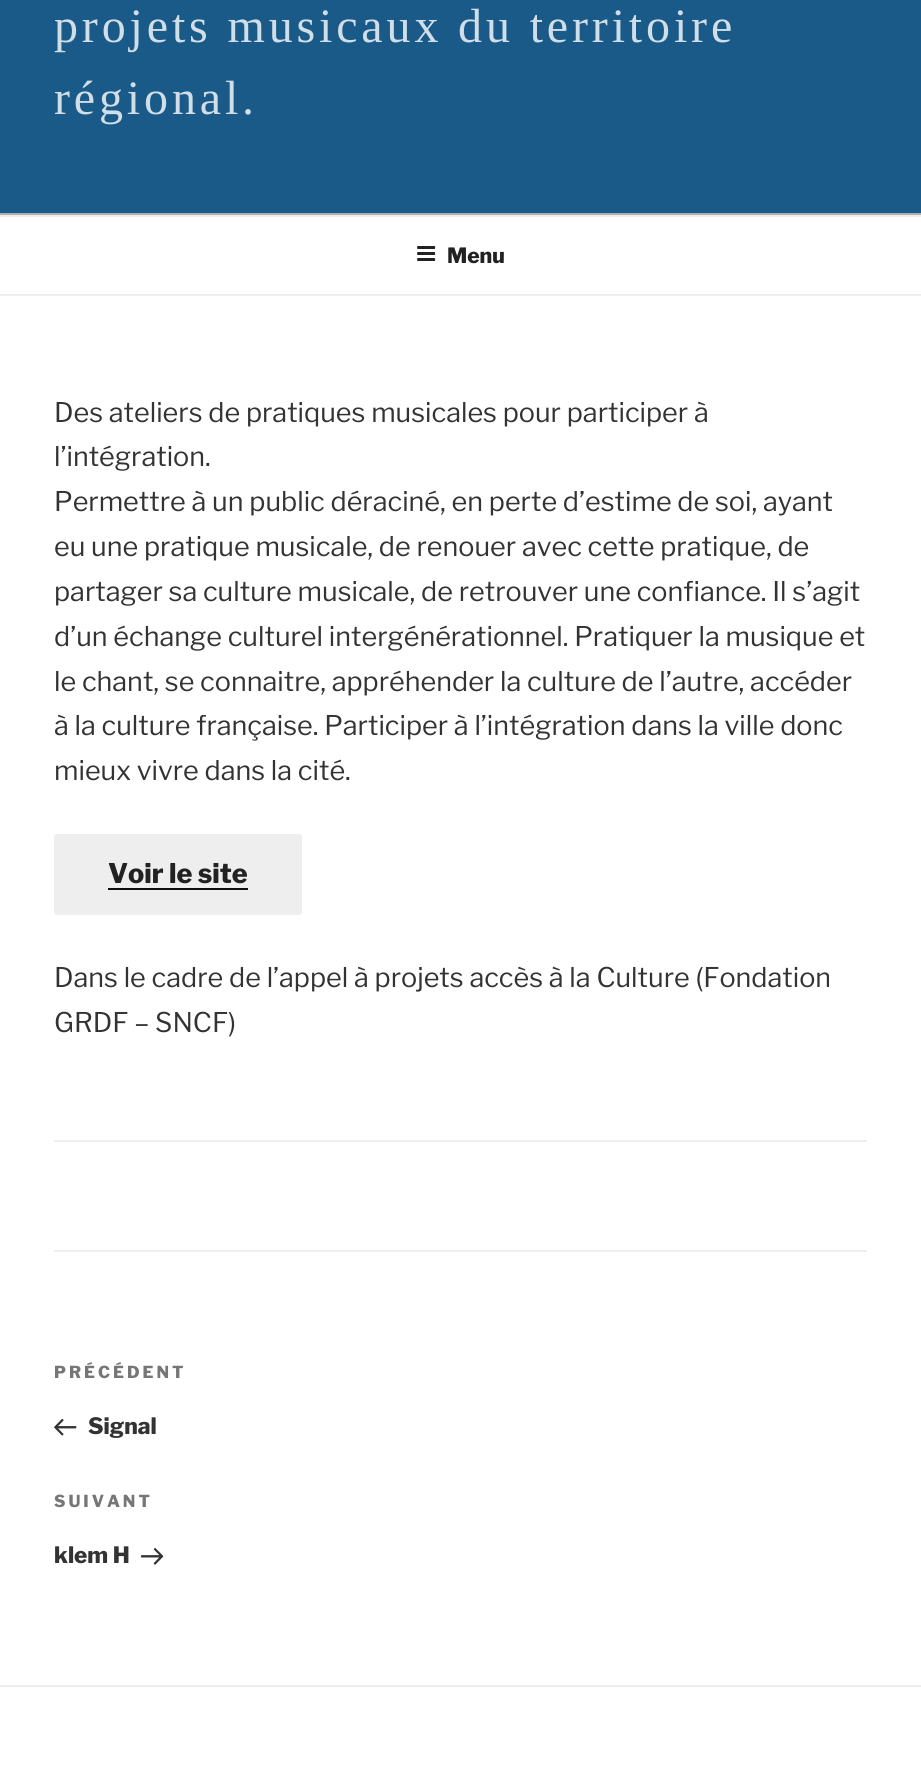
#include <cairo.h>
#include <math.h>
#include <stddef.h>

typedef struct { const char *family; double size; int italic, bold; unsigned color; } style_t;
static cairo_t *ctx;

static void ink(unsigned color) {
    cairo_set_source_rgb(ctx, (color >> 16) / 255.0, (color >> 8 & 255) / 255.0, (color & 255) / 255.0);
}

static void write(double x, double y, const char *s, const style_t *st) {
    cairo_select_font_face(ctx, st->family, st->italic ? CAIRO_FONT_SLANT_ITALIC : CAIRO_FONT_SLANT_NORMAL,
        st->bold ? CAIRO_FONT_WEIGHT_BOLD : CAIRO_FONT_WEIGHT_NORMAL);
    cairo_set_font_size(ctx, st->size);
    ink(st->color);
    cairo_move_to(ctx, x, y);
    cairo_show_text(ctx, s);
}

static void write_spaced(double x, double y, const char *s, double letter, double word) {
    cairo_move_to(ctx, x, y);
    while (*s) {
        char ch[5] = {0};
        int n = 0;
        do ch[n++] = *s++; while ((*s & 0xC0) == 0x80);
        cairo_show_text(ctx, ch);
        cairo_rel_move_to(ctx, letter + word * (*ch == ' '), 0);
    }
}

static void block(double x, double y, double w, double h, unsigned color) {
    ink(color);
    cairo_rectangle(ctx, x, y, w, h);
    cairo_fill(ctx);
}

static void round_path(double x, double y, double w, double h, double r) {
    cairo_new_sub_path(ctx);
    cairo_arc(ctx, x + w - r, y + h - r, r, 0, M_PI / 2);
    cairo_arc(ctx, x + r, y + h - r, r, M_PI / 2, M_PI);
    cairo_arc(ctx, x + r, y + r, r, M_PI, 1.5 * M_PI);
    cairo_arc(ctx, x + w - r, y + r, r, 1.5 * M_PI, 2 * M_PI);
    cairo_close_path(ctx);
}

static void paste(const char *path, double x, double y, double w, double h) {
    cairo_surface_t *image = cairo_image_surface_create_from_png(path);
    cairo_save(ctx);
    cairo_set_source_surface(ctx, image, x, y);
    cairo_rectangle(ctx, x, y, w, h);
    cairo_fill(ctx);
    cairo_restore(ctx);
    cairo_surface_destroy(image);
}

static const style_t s1 = {"Libre Franklin ExtraBold", 21, 0, 0, 0x222222};
static const style_t s2 = {"Libre Franklin", 27, 0, 0, 0x333333};
static const style_t s3 = {"Libre Franklin ExtraBold", 27, 0, 0, 0x222222};
static const style_t s4 = {"Libre Franklin ExtraBold", 22.5, 0, 0, 0x333333};

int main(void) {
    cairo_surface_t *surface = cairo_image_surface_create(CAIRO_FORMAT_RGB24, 921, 1768);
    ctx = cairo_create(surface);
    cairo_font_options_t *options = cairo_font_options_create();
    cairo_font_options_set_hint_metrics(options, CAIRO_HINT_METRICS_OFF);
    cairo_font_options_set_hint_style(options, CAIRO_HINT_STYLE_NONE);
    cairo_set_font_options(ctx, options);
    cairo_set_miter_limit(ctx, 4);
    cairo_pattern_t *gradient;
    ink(0xffffff);
    cairo_paint(ctx);
    block(0, 213, 921, 2, 0xfafafa);
    block(0, 0, 921, 213, 0x2481c4);
    gradient = cairo_pattern_create_linear(460, -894, 461, 215);
    cairo_pattern_add_color_stop_rgba(gradient, 0, 0, 0, 0, 0);
    cairo_pattern_add_color_stop_rgba(gradient, 0.75, 0, 0, 0, 0.3);
    cairo_pattern_add_color_stop_rgba(gradient, 1, 0, 0, 0, 0.3);
    cairo_set_source(ctx, gradient);
    cairo_pattern_destroy(gradient);
    cairo_rectangle(ctx, 0, 0, 921, 215);
    cairo_fill(ctx);
    cairo_select_font_face(ctx, "Liberation Serif", CAIRO_FONT_SLANT_NORMAL, CAIRO_FONT_WEIGHT_NORMAL);
    cairo_set_font_size(ctx, 48);
    ink(0xd1dee7);
    write_spaced(54, 42, "projets musicaux du territoire", 3.85, 0);
    write_spaced(54, 114, "régional.", 3.85, 0);
    block(0, 215, 921, 2, 0xeeeeee);
    block(0, 294, 921, 2, 0xeeeeee);
    paste("pic1.png", 417, 246, 19, 15);
    write(447, 263, "Menu", &s1);
    write(54, 422, "Des ateliers de pratiques musicales pour participer à", &s2);
    write(54, 466, "l’intégration.", &s2);
    write(54, 511, "Permettre à un public déraciné, en perte d’estime de soi, ayant", &s2);
    write(54, 556, "eu une pratique musicale, de renouer avec cette pratique, de", &s2);
    write(54, 601, "partager sa culture musicale, de retrouver une confiance. Il s’agit", &s2);
    write(54, 646, "d’un échange culturel intergénérationnel. Pratiquer la musique et", &s2);
    write(54, 691, "le chant, se connaitre, appréhender la culture de l’autre, accéder", &s2);
    write(54, 735, "à la culture française. Participer à l’intégration dans la ville donc", &s2);
    write(54, 780, "mieux vivre dans la cité.", &s2);
    ink(0xeeeeee);
    round_path(54, 834, 248, 81, 3);
    cairo_fill(ctx);
    write(108, 883, "Voir le site", &s3);
    block(108, 888, 140, 2, 0x0f0f0f);
    write(54, 987, "Dans le cadre de l’appel à projets accès à la Culture (Fondation", &s2);
    write(54, 1032, "GRDF – SNCF)", &s2);
    block(54, 1140, 813, 2, 0xeeeeee);
    block(54, 1250, 813, 2, 0xeeeeee);
    cairo_select_font_face(ctx, "Libre Franklin ExtraBold", CAIRO_FONT_SLANT_NORMAL, CAIRO_FONT_WEIGHT_NORMAL);
    cairo_set_font_size(ctx, 16.5);
    ink(0x767676);
    write_spaced(54, 1378, "PRÉCÉDENT", 3, 0);
    paste("pic2.png", 54, 1418, 23, 18);
    write(88, 1434, "Signal", &s4);
    cairo_set_font_size(ctx, 16.5);
    ink(0x767676);
    write_spaced(54, 1507, "SUIVANT", 3, 0);
    write(54, 1563, "klem H", &s4);
    paste("pic3.png", 141, 1547, 23, 18);
    block(0, 1685, 921, 2, 0xeeeeee);
    cairo_surface_write_to_png(surface, "screenshot.png");
    cairo_font_options_destroy(options);
    cairo_destroy(ctx);
    cairo_surface_destroy(surface);
    return 0;
}
